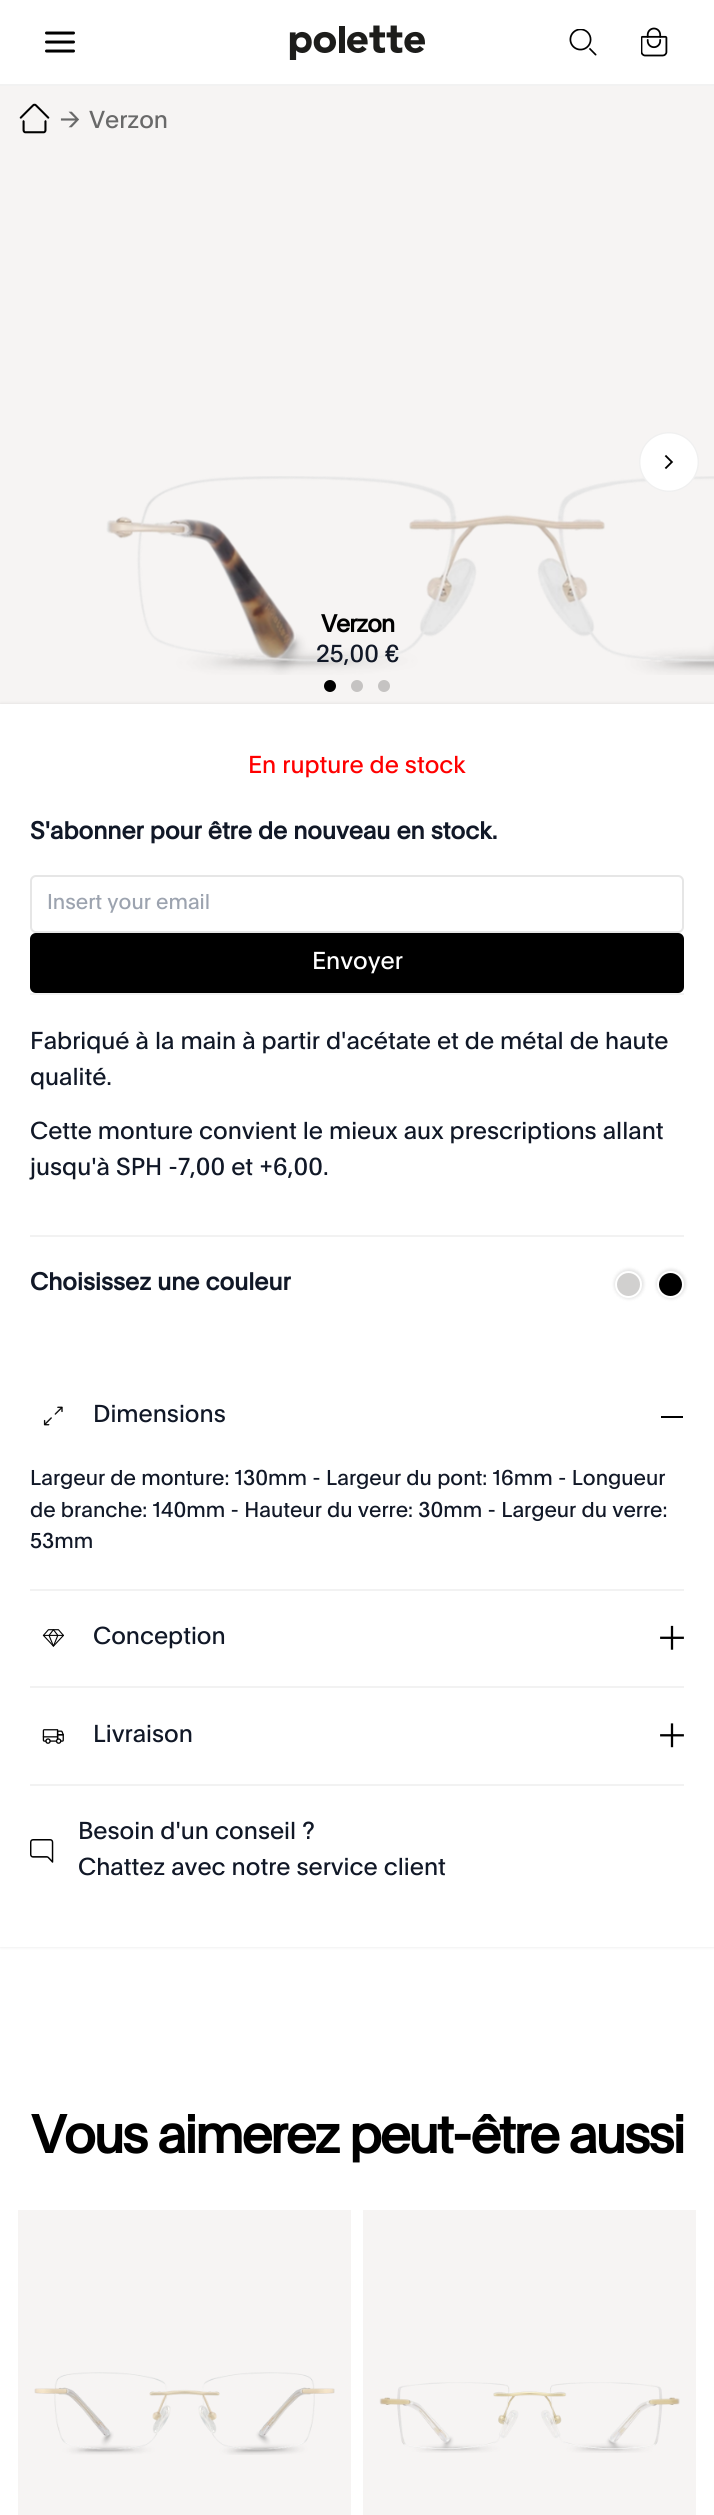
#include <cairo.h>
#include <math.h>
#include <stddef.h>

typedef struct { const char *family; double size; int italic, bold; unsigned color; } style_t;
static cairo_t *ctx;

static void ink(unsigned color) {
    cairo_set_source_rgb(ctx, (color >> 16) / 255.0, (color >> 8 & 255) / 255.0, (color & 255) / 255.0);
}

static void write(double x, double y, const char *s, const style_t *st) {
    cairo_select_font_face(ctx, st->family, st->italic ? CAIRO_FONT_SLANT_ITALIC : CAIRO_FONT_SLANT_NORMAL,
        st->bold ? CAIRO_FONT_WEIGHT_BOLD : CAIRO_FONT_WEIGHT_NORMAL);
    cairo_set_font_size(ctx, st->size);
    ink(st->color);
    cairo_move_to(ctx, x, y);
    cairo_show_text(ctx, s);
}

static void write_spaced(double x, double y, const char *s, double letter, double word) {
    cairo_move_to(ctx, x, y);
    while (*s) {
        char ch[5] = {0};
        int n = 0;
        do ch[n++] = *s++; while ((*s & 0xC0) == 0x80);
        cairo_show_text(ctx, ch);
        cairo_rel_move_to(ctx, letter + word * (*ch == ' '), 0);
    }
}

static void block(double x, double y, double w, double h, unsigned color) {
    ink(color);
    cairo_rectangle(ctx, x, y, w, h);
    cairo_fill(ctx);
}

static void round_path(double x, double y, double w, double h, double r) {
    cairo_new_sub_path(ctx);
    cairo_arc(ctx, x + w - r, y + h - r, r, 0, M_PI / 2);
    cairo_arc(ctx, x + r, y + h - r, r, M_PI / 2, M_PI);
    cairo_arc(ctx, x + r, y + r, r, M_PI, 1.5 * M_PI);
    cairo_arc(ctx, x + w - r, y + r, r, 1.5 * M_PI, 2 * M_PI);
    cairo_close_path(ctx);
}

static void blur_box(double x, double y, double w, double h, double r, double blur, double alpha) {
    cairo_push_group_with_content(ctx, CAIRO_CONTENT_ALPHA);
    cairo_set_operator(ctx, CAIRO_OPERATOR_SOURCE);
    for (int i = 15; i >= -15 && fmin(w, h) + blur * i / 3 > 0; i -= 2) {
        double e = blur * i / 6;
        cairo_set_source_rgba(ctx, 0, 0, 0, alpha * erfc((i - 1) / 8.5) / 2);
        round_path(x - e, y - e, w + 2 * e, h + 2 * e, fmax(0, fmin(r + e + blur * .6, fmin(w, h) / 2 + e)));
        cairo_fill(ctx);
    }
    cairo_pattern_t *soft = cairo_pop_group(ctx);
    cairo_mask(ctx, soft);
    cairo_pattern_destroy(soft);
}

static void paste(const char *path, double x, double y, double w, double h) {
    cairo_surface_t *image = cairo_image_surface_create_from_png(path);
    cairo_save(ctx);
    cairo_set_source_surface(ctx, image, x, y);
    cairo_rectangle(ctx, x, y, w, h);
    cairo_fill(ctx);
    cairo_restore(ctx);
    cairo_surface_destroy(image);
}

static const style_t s1 = {"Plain", 24, 0, 0, 0x696969};
static const style_t s2 = {"Plain", 24, 0, 0, 0x111827};
static const style_t s3 = {"Plain", 24, 0, 0, 0xff0000};
static const style_t s4 = {"Plain", 24, 0, 1, 0x111827};
static const style_t s5 = {"Plain", 21, 0, 0, 0x9ca3af};
static const style_t s6 = {"Plain", 24, 0, 0, 0xffffff};
static const style_t s7 = {"Plain", 21, 0, 0, 0x111827};

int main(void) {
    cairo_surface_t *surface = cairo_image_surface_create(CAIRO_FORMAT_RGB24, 714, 2515);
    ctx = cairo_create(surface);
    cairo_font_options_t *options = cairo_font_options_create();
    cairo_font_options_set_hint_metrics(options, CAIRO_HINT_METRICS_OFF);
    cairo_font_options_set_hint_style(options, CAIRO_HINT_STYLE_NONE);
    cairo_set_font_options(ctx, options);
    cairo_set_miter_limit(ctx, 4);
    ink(0xffffff);
    cairo_paint(ctx);
    block(0, 84, 714, 2, 0xf2f2f2);
    cairo_new_path(ctx);
    cairo_move_to(ctx, 46.5, 42);
    cairo_line_to(ctx, 73.5, 42);
    cairo_move_to(ctx, 46.5, 33);
    cairo_line_to(ctx, 73.5, 33);
    cairo_move_to(ctx, 46.5, 51);
    cairo_line_to(ctx, 73.5, 51);
    ink(0x000000);
    cairo_set_line_width(ctx, 3);
    cairo_set_line_cap(ctx, CAIRO_LINE_CAP_ROUND);
    cairo_set_line_join(ctx, CAIRO_LINE_JOIN_ROUND);
    cairo_stroke(ctx);
    paste("pic1.png", 289, 25, 136, 35);
    paste("pic2.png", 569, 29, 28, 27);
    paste("pic3.png", 641, 27, 27, 30);
    block(0, 86, 714, 618, 0xf6f4f3);
    paste("pic4.png", 19, 103, 31, 31);
    write(60, 128, "→", &s1);
    write(89, 128, "Verzon", &s1);
    paste("pic6.png", 106, 476, 608, 199);
    paste("pic5.png", 639, 432, 60, 60);
    ink(0x000000);
    cairo_arc(ctx, 330, 686, 6, 0, 2 * M_PI);
    cairo_fill(ctx);
    ink(0xc5c3c2);
    cairo_arc(ctx, 357, 686, 6, 0, 2 * M_PI);
    cairo_fill(ctx);
    cairo_arc(ctx, 384, 686, 6, 0, 2 * M_PI);
    cairo_fill(ctx);
    ink(0x000000);
    blur_box(0, 704, 714, 1243, 0, 1.5, 0.1);
    block(0, 704, 714, 1243, 0xffffff);
    cairo_select_font_face(ctx, "Plain", CAIRO_FONT_SLANT_NORMAL, CAIRO_FONT_WEIGHT_BOLD);
    ink(0x000000);
    write_spaced(321, 632, "Verzon", -1, 0);
    write(316, 662, "25,00 €", &s2);
    write(248, 773, "En rupture de stock", &s3);
    write(30, 839, "S'abonner pour être de nouveau en stock.", &s4);
    round_path(31, 876, 652, 56, 5);
    ink(0xe6e6e6);
    cairo_set_line_width(ctx, 2);
    cairo_set_line_cap(ctx, CAIRO_LINE_CAP_BUTT);
    cairo_set_line_join(ctx, CAIRO_LINE_JOIN_MITER);
    cairo_stroke(ctx);
    write(47, 909, "Insert your email", &s5);
    ink(0x000000);
    round_path(30, 933, 654, 60, 6);
    cairo_fill(ctx);
    write(312, 969, "Envoyer", &s6);
    block(30, 993, 654, 2, 0xf2f2f2);
    block(30, 1235, 654, 2, 0xf2f2f2);
    write(30, 1049, "Fabriqué à la main à partir d'acétate et de métal de haute", &s2);
    write(30, 1085, "qualité.", &s2);
    write(30, 1139, "Cette monture convient le mieux aux prescriptions allant", &s2);
    write(30, 1175, "jusqu'à SPH -7,00 et +6,00.", &s2);
    write(30, 1290, "Choisissez une couleur", &s4);
    ink(0x000000);
    blur_box(614, 1269, 30, 30, 15, 1.5, 0.1);
    ink(0xd1d0cf);
    cairo_arc(ctx, 628.5, 1284.5, 12.5, 0, 2 * M_PI);
    cairo_fill_preserve(ctx);
    ink(0xffffff);
    cairo_stroke(ctx);
    ink(0x000000);
    blur_box(656, 1269, 30, 30, 15, 1.5, 0.1);
    ink(0x000000);
    cairo_arc(ctx, 670.5, 1284.5, 12.5, 0, 2 * M_PI);
    cairo_fill_preserve(ctx);
    ink(0xffffff);
    cairo_stroke(ctx);
    block(30, 1589, 654, 2, 0xf2f2f2);
    block(661, 1416, 22, 2, 0x000000);
    paste("pic7.png", 43, 1406, 20, 20);
    write(93, 1422, "Dimensions", &s2);
    write(30, 1485, "Largeur de monture: 130mm - Largeur du pont: 16mm - Longueur", &s7);
    write(30, 1517, "de branche: 140mm - Hauteur du verre: 30mm - Largeur du verre:", &s7);
    write(30, 1548, "53mm", &s7);
    block(30, 1686, 654, 2, 0xf2f2f2);
    paste("pic8.png", 660, 1625, 24, 25);
    paste("pic9.png", 42, 1629, 22, 18);
    write(93, 1644, "Conception", &s2);
    block(30, 1784, 654, 2, 0xf2f2f2);
    paste("pic10.png", 660, 1723, 24, 25);
    paste("pic11.png", 42, 1729, 22, 15);
    write(93, 1742, "Livraison", &s2);
    paste("pic12.png", 30, 1839, 24, 24);
    write(78, 1839, "Besoin d'un conseil ?", &s2);
    write(78, 1875, "Chattez avec notre service client", &s2);
    cairo_select_font_face(ctx, "Plain", CAIRO_FONT_SLANT_NORMAL, CAIRO_FONT_WEIGHT_BOLD);
    cairo_set_font_size(ctx, 52.5);
    ink(0x000000);
    write_spaced(31, 2153, "Vous aimerez peut-être aussi", -2.25, 0);
    block(18, 2210, 333, 305, 0xf6f4f3);
    paste("pic13.png", 34, 2372, 301, 83);
    block(363, 2210, 333, 305, 0xf6f4f3);
    paste("pic14.png", 379, 2382, 301, 71);
    cairo_surface_write_to_png(surface, "screenshot.png");
    cairo_font_options_destroy(options);
    cairo_destroy(ctx);
    cairo_surface_destroy(surface);
    return 0;
}
